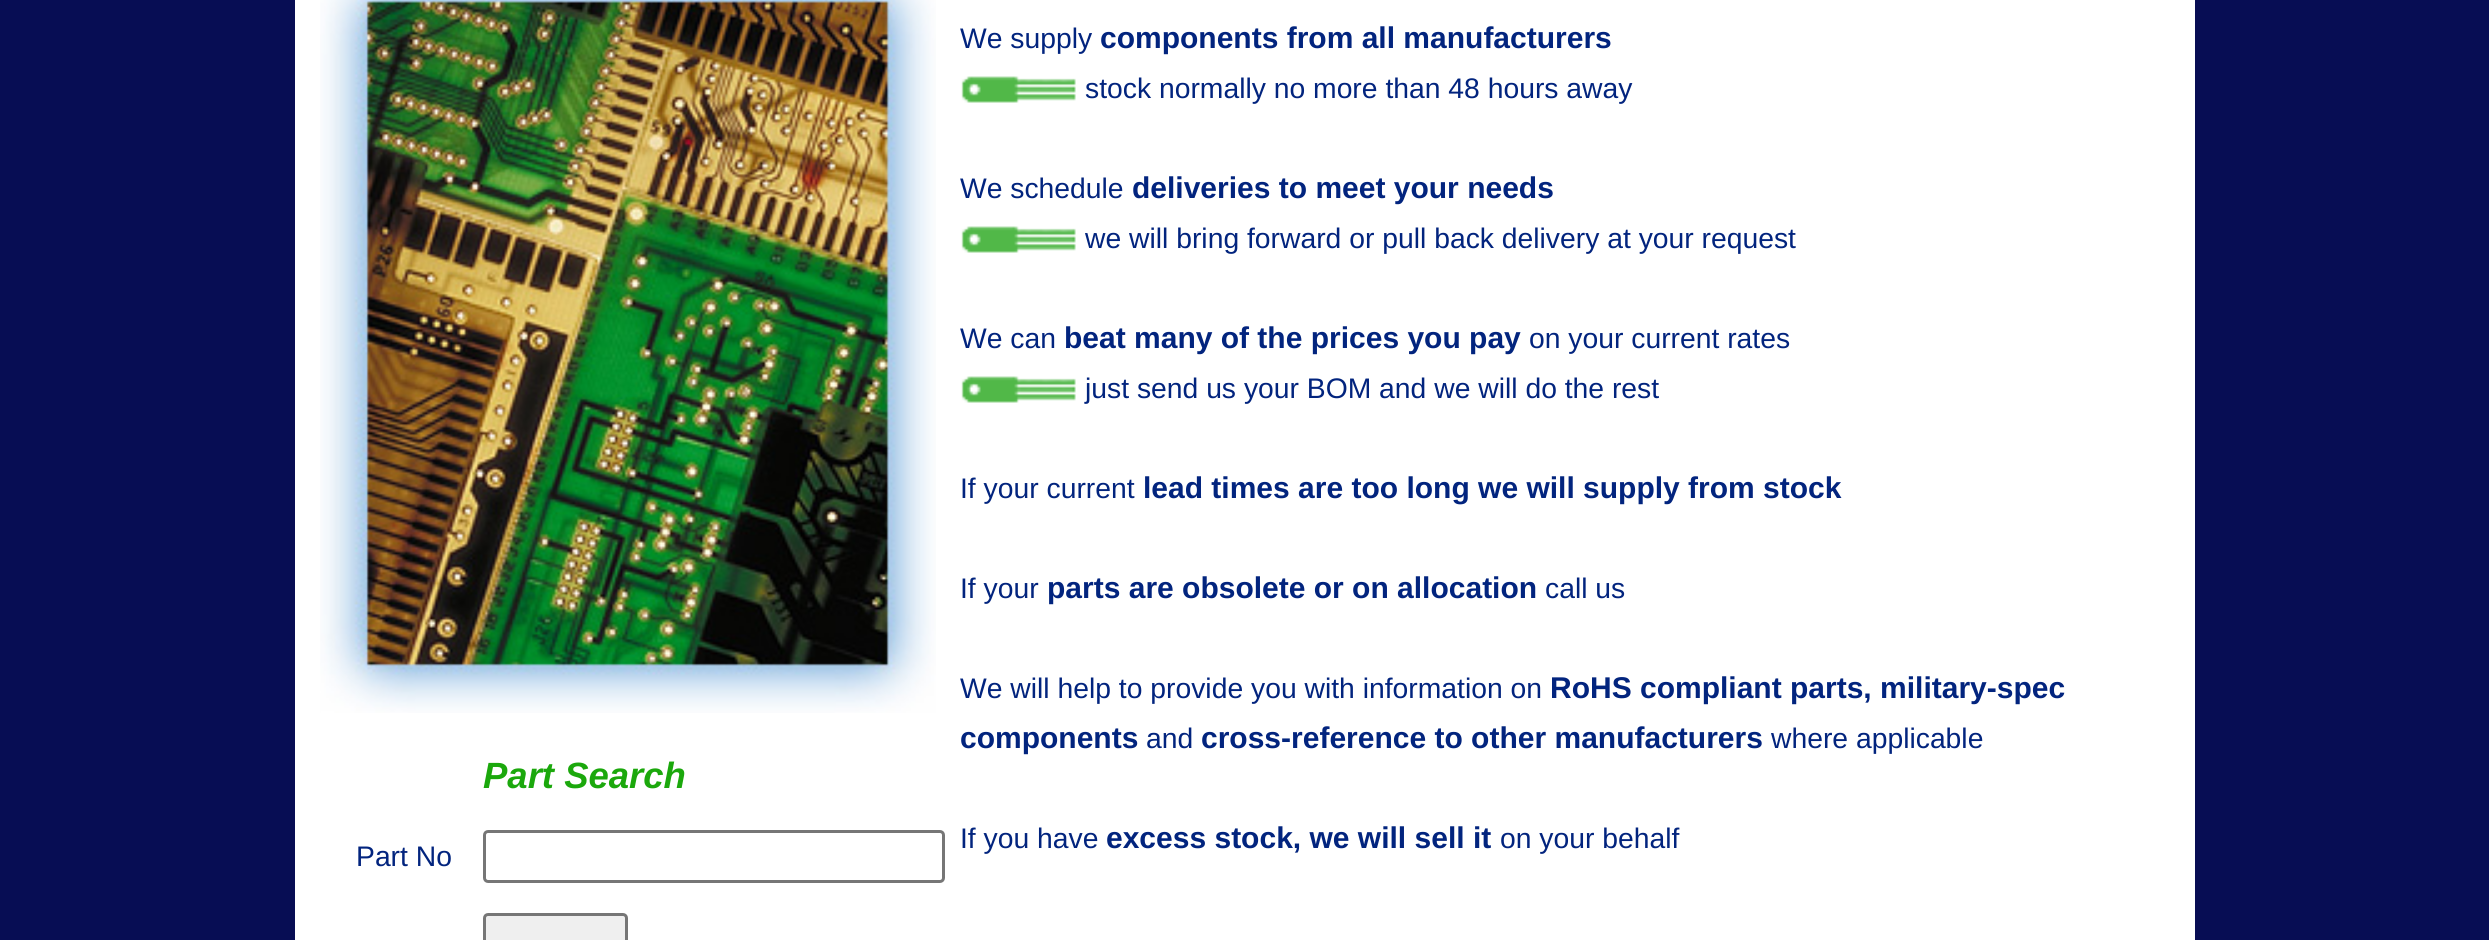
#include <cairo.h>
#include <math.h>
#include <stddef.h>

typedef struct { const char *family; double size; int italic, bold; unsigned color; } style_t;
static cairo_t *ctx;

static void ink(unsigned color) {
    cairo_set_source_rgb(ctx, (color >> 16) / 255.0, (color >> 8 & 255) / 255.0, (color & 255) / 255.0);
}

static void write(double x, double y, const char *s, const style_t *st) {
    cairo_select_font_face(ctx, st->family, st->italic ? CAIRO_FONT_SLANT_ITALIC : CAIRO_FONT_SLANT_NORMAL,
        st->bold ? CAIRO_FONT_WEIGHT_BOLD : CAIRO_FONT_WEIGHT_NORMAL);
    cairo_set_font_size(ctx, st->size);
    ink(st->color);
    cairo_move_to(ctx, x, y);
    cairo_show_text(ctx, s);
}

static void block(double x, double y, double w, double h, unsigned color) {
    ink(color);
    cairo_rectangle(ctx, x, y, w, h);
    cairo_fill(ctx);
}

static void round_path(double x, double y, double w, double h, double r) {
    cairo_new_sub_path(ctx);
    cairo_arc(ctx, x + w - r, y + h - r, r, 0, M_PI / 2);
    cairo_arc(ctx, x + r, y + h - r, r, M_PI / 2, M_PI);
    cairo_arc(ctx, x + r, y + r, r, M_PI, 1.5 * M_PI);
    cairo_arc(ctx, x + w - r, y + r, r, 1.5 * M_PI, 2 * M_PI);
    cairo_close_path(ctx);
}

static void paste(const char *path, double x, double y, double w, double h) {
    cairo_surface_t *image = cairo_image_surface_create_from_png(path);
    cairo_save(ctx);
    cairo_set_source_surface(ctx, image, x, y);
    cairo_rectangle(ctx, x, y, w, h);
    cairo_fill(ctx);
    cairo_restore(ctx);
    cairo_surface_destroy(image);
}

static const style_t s1 = {"Liberation Sans", 36.5, 1, 1, 0x1ba80c};
static const style_t s2 = {"Liberation Sans", 28.3, 0, 0, 0x02247e};
static const style_t s3 = {"Liberation Sans", 30, 0, 1, 0x02247e};

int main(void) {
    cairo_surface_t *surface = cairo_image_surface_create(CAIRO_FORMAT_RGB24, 2489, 940);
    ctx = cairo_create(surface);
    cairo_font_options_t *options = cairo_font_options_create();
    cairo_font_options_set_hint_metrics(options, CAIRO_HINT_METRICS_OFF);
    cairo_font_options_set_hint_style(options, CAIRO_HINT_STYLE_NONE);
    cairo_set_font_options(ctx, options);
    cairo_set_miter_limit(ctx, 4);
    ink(0x070d54);
    cairo_paint(ctx);
    block(295, 0, 1900, 940, 0xffffff);
    paste("pic1.png", 320, 0, 616, 713);
    write(483, 788, "Part Search", &s1);
    write(356, 866, "Part No", &s2);
    round_path(484.5, 831.5, 459, 50, 3.5);
    ink(0x767676);
    cairo_set_line_width(ctx, 3);
    cairo_stroke(ctx);
    ink(0xefefef);
    round_path(484.5, 914.5, 142, 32, 3.5);
    cairo_fill_preserve(ctx);
    ink(0x767676);
    cairo_stroke(ctx);
    write(960, 48, "We supply", &s2);
    write(1100, 48, "components from all manufacturers", &s3);
    paste("pic2.png", 961, 76, 115, 27);
    write(1085, 98, "stock normally no more than 48 hours away", &s2);
    write(960, 198, "We schedule", &s2);
    write(1132, 198, "deliveries to meet your needs", &s3);
    paste("pic2.png", 961, 226, 115, 27);
    write(1085, 248, "we will bring forward or pull back delivery at your request", &s2);
    write(960, 348, "We can", &s2);
    write(1064, 348, "beat many of the prices you pay", &s3);
    write(1529, 348, "on your current rates", &s2);
    paste("pic2.png", 961, 376, 115, 27);
    write(1085, 398, "just send us your BOM and we will do the rest", &s2);
    write(960, 498, "If your current", &s2);
    write(1143, 498, "lead times are too long we will supply from stock", &s3);
    write(960, 598, "If your", &s2);
    write(1047, 598, "parts are obsolete or on allocation", &s3);
    write(1545, 598, "call us", &s2);
    write(960, 698, "We will help to provide you with information on", &s2);
    write(1550, 698, "RoHS compliant parts, military-spec", &s3);
    write(960, 748, "components", &s3);
    write(1146, 748, "and", &s2);
    write(1201, 748, "cross-reference to other manufacturers", &s3);
    write(1771, 748, "where applicable", &s2);
    write(960, 848, "If you have", &s2);
    write(1106, 848, "excess stock, we will sell it", &s3);
    write(1500, 848, "on your behalf", &s2);
    cairo_surface_write_to_png(surface, "screenshot.png");
    cairo_font_options_destroy(options);
    cairo_destroy(ctx);
    cairo_surface_destroy(surface);
    return 0;
}
